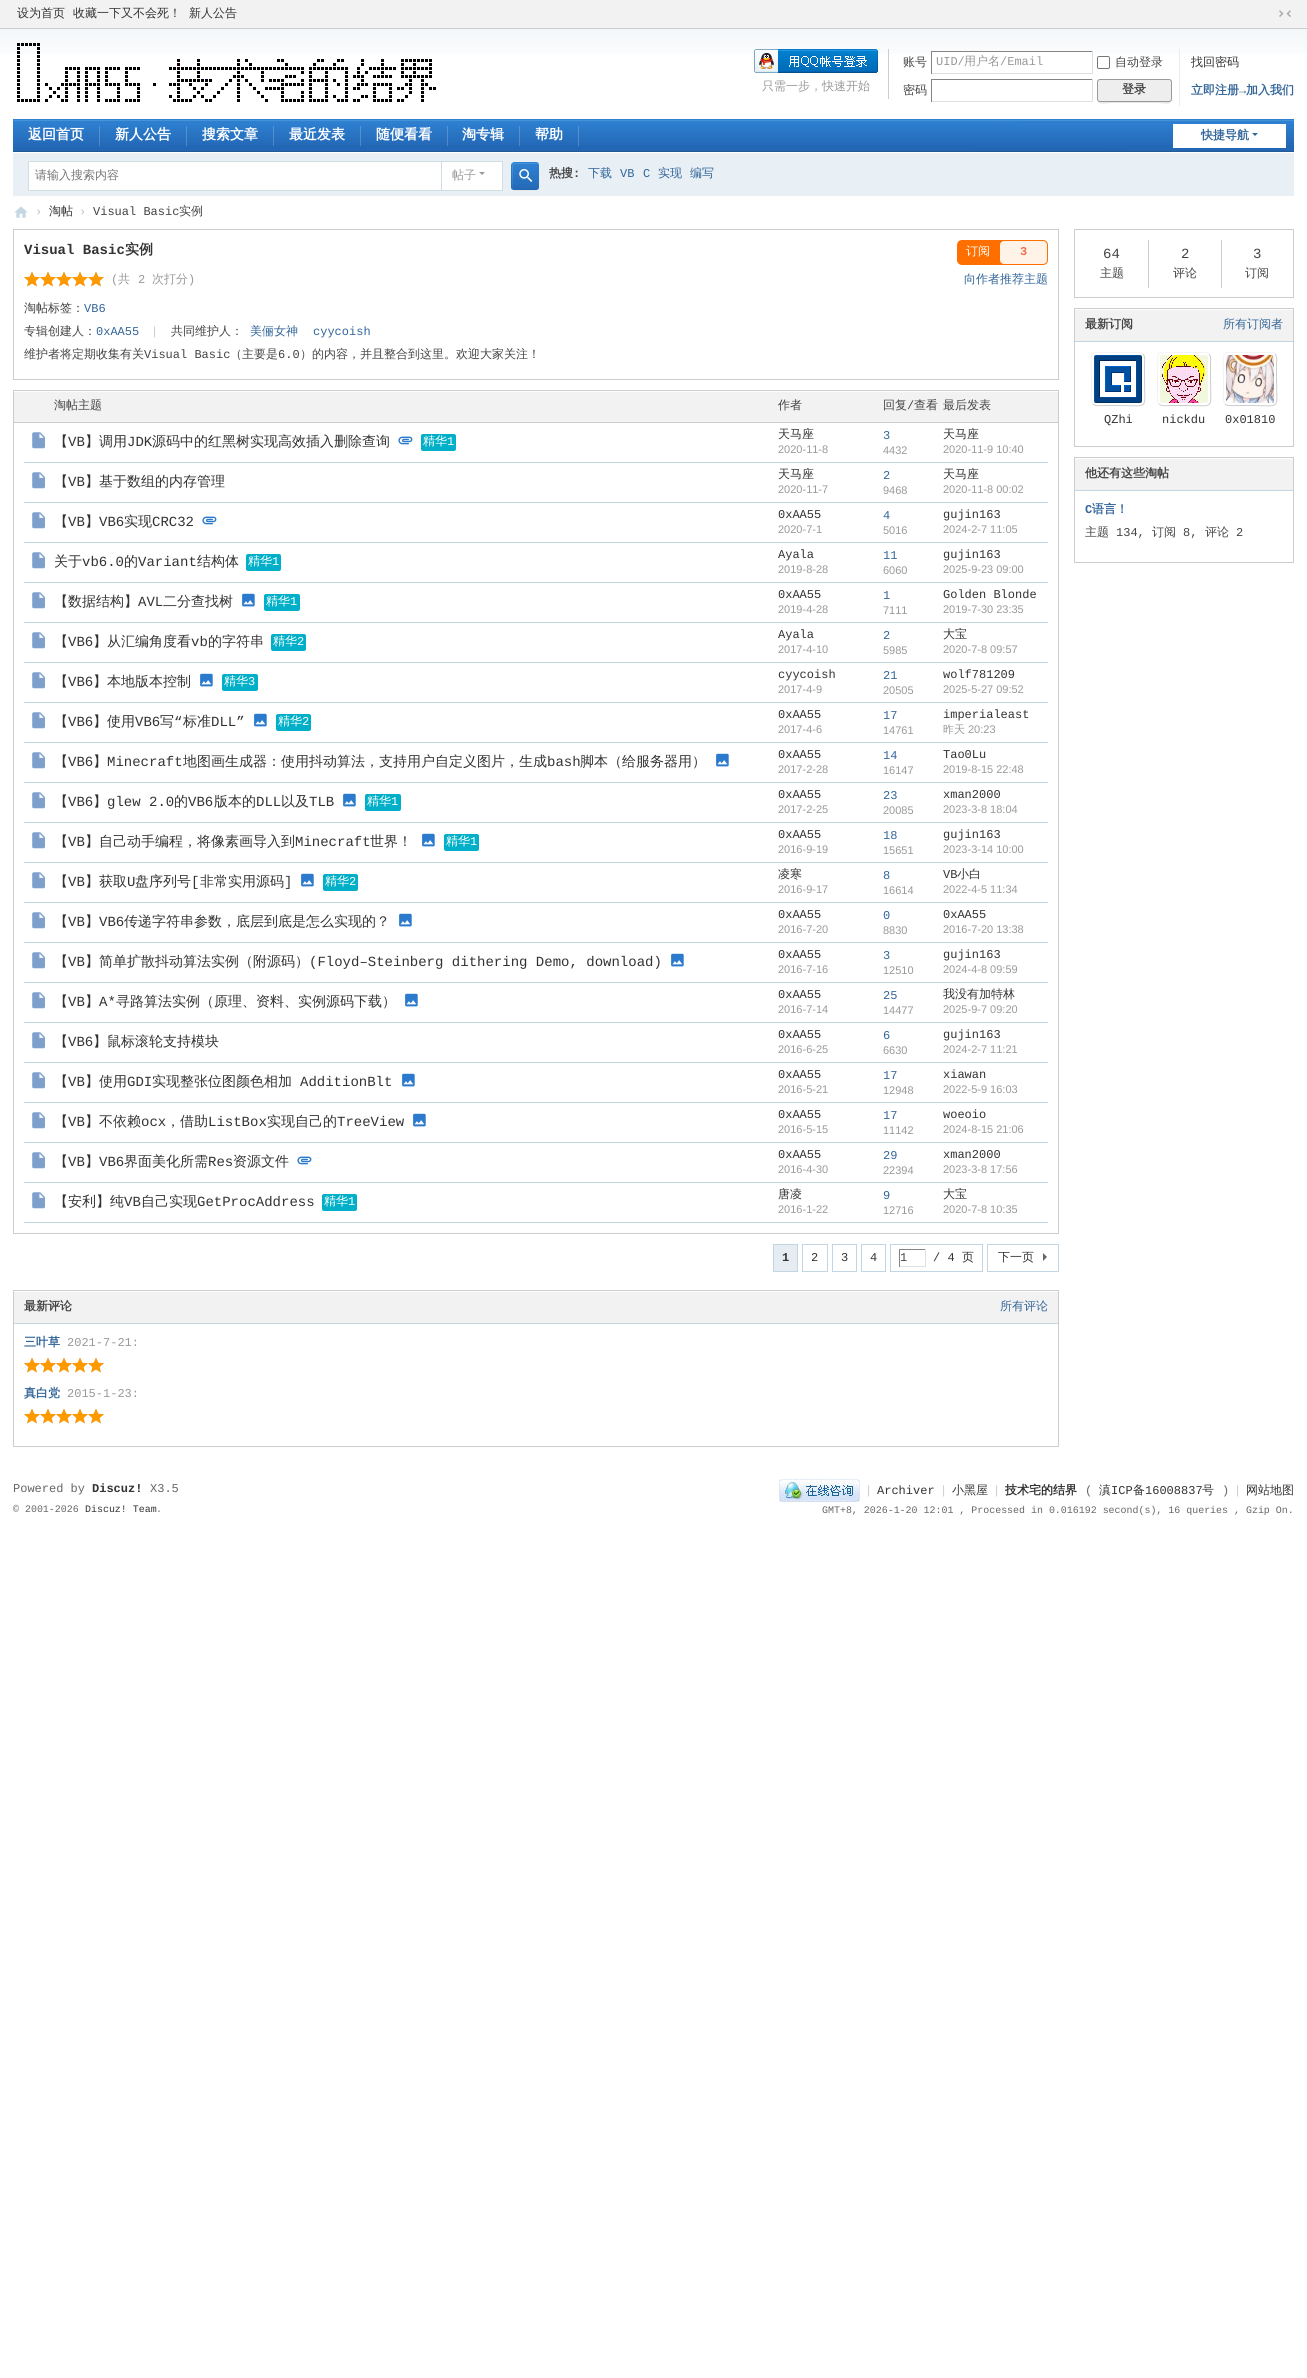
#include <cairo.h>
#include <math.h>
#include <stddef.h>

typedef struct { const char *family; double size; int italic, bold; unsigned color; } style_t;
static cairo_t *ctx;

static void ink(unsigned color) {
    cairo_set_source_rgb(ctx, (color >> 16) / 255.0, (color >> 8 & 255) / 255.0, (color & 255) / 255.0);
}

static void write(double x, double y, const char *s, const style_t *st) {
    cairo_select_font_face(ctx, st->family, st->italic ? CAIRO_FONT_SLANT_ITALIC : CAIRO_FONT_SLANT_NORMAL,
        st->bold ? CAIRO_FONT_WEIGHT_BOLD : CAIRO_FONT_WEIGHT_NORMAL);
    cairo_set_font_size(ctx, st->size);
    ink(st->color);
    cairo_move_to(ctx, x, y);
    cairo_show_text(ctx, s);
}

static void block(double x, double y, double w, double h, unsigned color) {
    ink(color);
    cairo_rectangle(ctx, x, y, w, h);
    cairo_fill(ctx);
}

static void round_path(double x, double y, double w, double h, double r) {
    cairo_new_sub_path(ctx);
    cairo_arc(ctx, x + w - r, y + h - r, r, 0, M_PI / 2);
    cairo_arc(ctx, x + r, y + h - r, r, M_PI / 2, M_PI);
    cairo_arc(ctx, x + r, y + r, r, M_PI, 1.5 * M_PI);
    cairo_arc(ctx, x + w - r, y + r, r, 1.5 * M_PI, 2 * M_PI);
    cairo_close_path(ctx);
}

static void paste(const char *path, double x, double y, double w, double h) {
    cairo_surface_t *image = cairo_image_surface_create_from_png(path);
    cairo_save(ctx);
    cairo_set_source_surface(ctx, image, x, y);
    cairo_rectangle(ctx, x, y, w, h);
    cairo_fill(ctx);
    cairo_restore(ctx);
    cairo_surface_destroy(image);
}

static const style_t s1 = {"WenQuanYi Zen Hei Medium", 12, 0, 0, 0x333333};
static const style_t s2 = {"WenQuanYi Zen Hei Medium", 12, 0, 0, 0x999999};
static const style_t s3 = {"WenQuanYi Zen Hei Medium", 12, 0, 0, 0x444444};
static const style_t s4 = {"Liberation Mono", 12, 0, 0, 0x999999};
static const style_t s5 = {"WenQuanYi Zen Hei", 12, 0, 1, 0x444444};
static const style_t s6 = {"WenQuanYi Zen Hei", 12, 0, 1, 0x336699};
static const style_t s7 = {"Liberation Mono", 12, 0, 1, 0x336699};
static const style_t s8 = {"WenQuanYi Zen Hei", 14, 0, 1, 0xffffff};
static const style_t s9 = {"WenQuanYi Zen Hei Medium", 12, 0, 0, 0x757575};
static const style_t s10 = {"Liberation Mono", 12, 0, 1, 0x444444};
static const style_t s11 = {"WenQuanYi Zen Hei Medium", 12, 0, 0, 0x336699};
static const style_t s12 = {"Liberation Mono", 12, 0, 0, 0x336699};
static const style_t s13 = {"Liberation Mono", 12, 0, 0, 0xbdbdbd};
static const style_t s14 = {"Liberation Mono", 12, 0, 0, 0x444444};
static const style_t s15 = {"Liberation Mono", 14, 0, 1, 0x333333};
static const style_t s16 = {"WenQuanYi Zen Hei", 14, 0, 1, 0x333333};
static const style_t s17 = {"WenQuanYi Zen Hei Medium", 12, 0, 0, 0xffffff};
static const style_t s18 = {"Liberation Mono", 12, 0, 1, 0xf26c4f};
static const style_t s19 = {"Liberation Mono", 12, 0, 0, 0xcccccc};
static const style_t s20 = {"Liberation Sans", 11, 0, 0, 0x999999};
static const style_t s21 = {"WenQuanYi Zen Hei Medium", 14, 0, 0, 0x333333};
static const style_t s22 = {"Liberation Mono", 14, 0, 0, 0x333333};
static const style_t s23 = {"Liberation Mono", 12, 0, 0, 0xffffff};
static const style_t s24 = {"Liberation Mono", 12, 0, 0, 0x333333};
static const style_t s25 = {"WenQuanYi Zen Hei Medium", 11, 0, 0, 0x999999};
static const style_t s26 = {"Liberation Mono", 12, 0, 1, 0x333333};
static const style_t s27 = {"Liberation Mono", 14, 0, 0, 0x444444};
static const style_t s28 = {"Liberation Mono", 12, 0, 0, 0x666666};
static const style_t s29 = {"Liberation Mono", 9.95, 0, 0, 0x666666};
static const style_t s30 = {"Liberation Mono", 9.95, 0, 0, 0x333333};
static const style_t s31 = {"WenQuanYi Zen Hei", 12, 0, 1, 0x333333};

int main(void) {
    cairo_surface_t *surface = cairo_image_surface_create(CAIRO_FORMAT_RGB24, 1307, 2378);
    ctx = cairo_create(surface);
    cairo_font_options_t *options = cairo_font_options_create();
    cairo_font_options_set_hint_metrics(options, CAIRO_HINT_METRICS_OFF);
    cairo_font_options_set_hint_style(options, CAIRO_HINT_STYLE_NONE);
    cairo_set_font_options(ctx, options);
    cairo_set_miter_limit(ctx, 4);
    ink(0xffffff);
    cairo_paint(ctx);
    paste("pic1.png", 0, 29, 1307, 25);
    block(0, 0, 1307, 28, 0xf2f2f2);
    block(0, 28, 1307, 1, 0xcdcdcd);
    write(17, 17, "设为首页", &s1);
    write(73, 17, "收藏一下又不会死！", &s1);
    write(189, 17, "新人公告", &s1);
    paste("pic2.png", 1279, 10, 12, 7);
    paste("pic3.png", 17, 43, 419, 59);
    block(888, 49, 1, 50, 0xcdcdcd);
    paste("pic4.png", 754, 49, 124, 24);
    write(762, 90, "只需一步，快速开始", &s2);
    write(903, 66, "账号", &s3);
    block(932, 52, 160, 2, 0xffffff);
    block(931, 51, 162, 1, 0x848484);
    block(1092, 51, 1, 23, 0xe0e0e0);
    block(931, 73, 162, 1, 0xe0e0e0);
    block(931, 51, 1, 23, 0x848484);
    write(936, 65, "UID/", &s4);
    write(964, 65, "用户名", &s2);
    write(1000, 65, "/Email", &s4);
    round_path(1097.5, 56.5, 12, 12, 1.5);
    ink(0x767676);
    cairo_set_line_width(ctx, 1);
    cairo_stroke(ctx);
    write(1115, 66, "自动登录", &s3);
    write(1191, 66, "找回密码", &s1);
    write(903, 94, "密码", &s3);
    block(931, 79, 162, 1, 0x848484);
    block(1092, 79, 1, 23, 0xe0e0e0);
    block(931, 101, 162, 1, 0xe0e0e0);
    block(931, 79, 1, 23, 0x848484);
    block(1179, 49, 1, 57, 0xe5edf2);
    ink(0xe5e5e5);
    cairo_new_path(ctx);
    cairo_move_to(ctx, 1097, 99);
    cairo_curve_to(ctx, 1097, 106, 1107, 103, 1112, 103);
    cairo_line_to(ctx, 1158, 103);
    cairo_curve_to(ctx, 1162, 103, 1172, 106, 1172, 99);
    cairo_curve_to(ctx, 1172, 101, 1171, 102, 1169, 102);
    cairo_line_to(ctx, 1100, 102);
    cairo_curve_to(ctx, 1098, 102, 1097, 101, 1097, 99);
    cairo_close_path(ctx);
    cairo_fill(ctx);
    ink(0xeeeeee);
    round_path(1097.5, 79.5, 74, 22, 2.5);
    cairo_fill_preserve(ctx);
    ink(0x999999);
    cairo_stroke(ctx);
    write(1122, 93, "登录", &s5);
    write(1191, 94, "立即注册", &s6);
    write(1239, 94, "→", &s7);
    write(1246, 94, "加入我们", &s6);
    paste("pic5.png", 13, 119, 1281, 33);
    cairo_set_source_rgba(ctx, 1, 1, 1, 0.2);
    cairo_rectangle(ctx, 99, 126, 1, 20);
    cairo_fill(ctx);
    write(28, 139, "返回首页", &s8);
    cairo_set_source_rgba(ctx, 1, 1, 1, 0.2);
    cairo_rectangle(ctx, 186, 126, 1, 20);
    cairo_fill(ctx);
    write(115, 139, "新人公告", &s8);
    cairo_set_source_rgba(ctx, 1, 1, 1, 0.2);
    cairo_rectangle(ctx, 273, 126, 1, 20);
    cairo_fill(ctx);
    write(202, 139, "搜索文章", &s8);
    cairo_set_source_rgba(ctx, 1, 1, 1, 0.2);
    cairo_rectangle(ctx, 360, 126, 1, 20);
    cairo_fill(ctx);
    write(289, 139, "最近发表", &s8);
    cairo_set_source_rgba(ctx, 1, 1, 1, 0.2);
    cairo_rectangle(ctx, 447, 126, 1, 20);
    cairo_fill(ctx);
    write(376, 139, "随便看看", &s8);
    cairo_set_source_rgba(ctx, 1, 1, 1, 0.2);
    cairo_rectangle(ctx, 519, 126, 1, 20);
    cairo_fill(ctx);
    write(462, 139, "淘专辑", &s8);
    cairo_set_source_rgba(ctx, 1, 1, 1, 0.2);
    cairo_rectangle(ctx, 578, 126, 1, 20);
    cairo_fill(ctx);
    write(535, 139, "帮助", &s8);
    block(1173, 124, 113, 24, 0xffffff);
    write(1201, 139, "快捷导航", &s6);
    cairo_new_path(ctx);
    cairo_move_to(ctx, 1252, 133);
    cairo_line_to(ctx, 1258, 133);
    cairo_line_to(ctx, 1255, 136);
    cairo_close_path(ctx);
    cairo_fill(ctx);
    block(13, 153, 1281, 43, 0xe8eff5);
    block(440, 161, 63, 1, 0xcfdee3);
    block(502, 161, 1, 30, 0xcfdee3);
    block(440, 190, 63, 1, 0xcfdee3);
    ink(0xffffff);
    cairo_rectangle(ctx, 28.5, 161.5, 413, 29);
    cairo_fill_preserve(ctx);
    ink(0xcfdee3);
    cairo_stroke(ctx);
    write(35, 179, "请输入搜索内容", &s9);
    block(442, 162, 60, 28, 0xffffff);
    write(452, 179, "帖子", &s2);
    cairo_new_path(ctx);
    cairo_move_to(ctx, 479, 172);
    cairo_line_to(ctx, 485, 172);
    cairo_line_to(ctx, 482, 175);
    cairo_close_path(ctx);
    cairo_fill(ctx);
    ink(0xe5e5e5);
    cairo_new_path(ctx);
    cairo_move_to(ctx, 511, 187);
    cairo_curve_to(ctx, 511, 191.5, 514, 191, 517.5, 191);
    cairo_line_to(ctx, 532.5, 191);
    cairo_curve_to(ctx, 536, 191, 539, 191.5, 539, 187);
    cairo_curve_to(ctx, 539, 188.5, 537.5, 190, 536, 190);
    cairo_line_to(ctx, 514, 190);
    cairo_curve_to(ctx, 512.5, 190, 511, 188.5, 511, 187);
    cairo_close_path(ctx);
    cairo_fill(ctx);
    paste("pic6.png", 511, 162, 28, 28);
    paste("pic7.png", 519, 169, 14, 13);
    write(549, 177, "热搜", &s5);
    write(573, 177, ":", &s10);
    write(588, 177, "下载", &s11);
    write(620, 177, "VB", &s12);
    write(643, 177, "C", &s12);
    write(658, 177, "实现", &s11);
    write(690, 177, "编写", &s11);
    paste("pic8.png", 14, 206, 14, 12);
    write(35, 215, "›", &s13);
    write(49, 215, "淘帖", &s1);
    write(79, 215, "›", &s13);
    write(93, 215, "Visual Basic", &s14);
    write(179, 215, "实例", &s3);
    cairo_rectangle(ctx, 13.5, 229.5, 1045, 150);
    ink(0xcdcdcd);
    cairo_stroke(ctx);
    write(24, 254, "Visual Basic", &s15);
    write(125, 254, "实例", &s16);
    ink(0xff6f00);
    round_path(957, 240, 91, 25, 5);
    cairo_fill(ctx);
    write(966, 255, "订阅", &s17);
    ink(0xfff2e6);
    round_path(1000, 241, 47, 23, 4);
    cairo_fill(ctx);
    write(1020, 255, "3", &s18);
    paste("pic9.png", 24, 272, 80, 15);
    paste("pic10.png", 24, 271, 80, 16);
    write(111, 283, "(", &s4);
    write(118, 283, "共", &s2);
    write(138, 283, "2", &s4);
    write(152, 283, "次打分", &s2);
    write(188, 283, ")", &s4);
    write(964, 283, "向作者推荐主题", &s11);
    write(24, 312, "淘帖标签：", &s3);
    write(84, 312, "VB6", &s12);
    write(24, 335, "专辑创建人：", &s3);
    write(96, 335, "0xAA55", &s12);
    write(151, 335, "|", &s19);
    write(171, 335, "共同维护人：", &s3);
    write(250, 335, "美俪女神", &s11);
    write(313, 335, "cyycoish", &s12);
    write(24, 358, "维护者将定期收集有关", &s3);
    write(144, 358, "Visual Basic", &s14);
    write(230, 358, "（主要是", &s3);
    write(278, 358, "6.0", &s14);
    write(300, 358, "）的内容，并且整合到这里。欢迎大家关注！", &s3);
    cairo_rectangle(ctx, 13.5, 390.5, 1045, 843);
    ink(0xcdcdcd);
    cairo_stroke(ctx);
    block(14, 392, 1044, 30, 0xf2f2f2);
    block(14, 422, 1044, 1, 0xcdcdcd);
    write(54, 409, "淘帖主题", &s3);
    write(778, 409, "作者", &s3);
    write(883, 409, "回复", &s3);
    write(907, 409, "/", &s14);
    write(914, 409, "查看", &s3);
    write(943, 409, "最后发表", &s3);
    write(778, 438, "天马座", &s1);
    write(778, 453, "2020-11-8", &s20);
    write(883, 439, "3", &s12);
    write(883, 454, "4432", &s20);
    write(943, 438, "天马座", &s1);
    write(943, 453, "2020-11-9 10:40", &s20);
    block(24, 462, 1024, 1, 0xc2d5e3);
    paste("pic11.png", 32, 432, 13, 17);
    write(54, 446, "【", &s21);
    write(68, 446, "VB", &s22);
    write(85, 446, "】调用", &s21);
    write(127, 446, "JDK", &s22);
    write(152, 446, "源码中的红黑树实现高效插入删除查询", &s21);
    paste("pic12.png", 398, 436, 15, 9);
    ink(0x01b0c8);
    round_path(421, 434, 35, 17, 2);
    cairo_fill(ctx);
    write(423, 445, "精华", &s17);
    write(447, 445, "1", &s23);
    write(778, 478, "天马座", &s1);
    write(778, 493, "2020-11-7", &s20);
    write(883, 479, "2", &s12);
    write(883, 494, "9468", &s20);
    write(943, 478, "天马座", &s1);
    write(943, 493, "2020-11-8 00:02", &s20);
    block(24, 502, 1024, 1, 0xc2d5e3);
    paste("pic11.png", 32, 472, 13, 17);
    write(54, 486, "【", &s21);
    write(68, 486, "VB", &s22);
    write(85, 486, "】基于数组的内存管理", &s21);
    write(778, 518, "0xAA55", &s24);
    write(778, 533, "2020-7-1", &s20);
    write(883, 519, "4", &s12);
    write(883, 534, "5016", &s20);
    write(943, 518, "gujin163", &s24);
    write(943, 533, "2024-2-7 11:05", &s20);
    block(24, 542, 1024, 1, 0xc2d5e3);
    paste("pic11.png", 32, 512, 13, 17);
    write(54, 526, "【", &s21);
    write(68, 526, "VB", &s22);
    write(85, 526, "】", &s21);
    write(99, 526, "VB6", &s22);
    write(124, 526, "实现", &s21);
    write(152, 526, "CRC32", &s22);
    paste("pic12.png", 202, 516, 15, 9);
    write(778, 558, "Ayala", &s24);
    write(778, 573, "2019-8-28", &s20);
    write(883, 559, "11", &s12);
    write(883, 574, "6060", &s20);
    write(943, 558, "gujin163", &s24);
    write(943, 573, "2025-9-23 09:00", &s20);
    block(24, 582, 1024, 1, 0xc2d5e3);
    paste("pic11.png", 32, 552, 13, 17);
    write(54, 566, "关于", &s21);
    write(82, 566, "vb6.0", &s22);
    write(124, 566, "的", &s21);
    write(138, 566, "Variant", &s22);
    write(197, 566, "结构体", &s21);
    ink(0x01b0c8);
    round_path(246, 554, 35, 17, 2);
    cairo_fill(ctx);
    write(248, 565, "精华", &s17);
    write(272, 565, "1", &s23);
    write(778, 598, "0xAA55", &s24);
    write(778, 613, "2019-4-28", &s20);
    write(883, 599, "1", &s12);
    write(883, 614, "7111", &s20);
    write(943, 598, "Golden Blonde", &s24);
    write(943, 613, "2019-7-30 23:35", &s20);
    block(24, 622, 1024, 1, 0xc2d5e3);
    paste("pic11.png", 32, 592, 13, 17);
    write(54, 606, "【数据结构】", &s21);
    write(138, 606, "AVL", &s22);
    write(163, 606, "二分查找树", &s21);
    paste("pic13.png", 242, 593, 13, 14);
    ink(0x01b0c8);
    round_path(264, 594, 36, 17, 2);
    cairo_fill(ctx);
    write(266, 605, "精华", &s17);
    write(290, 605, "1", &s23);
    write(778, 638, "Ayala", &s24);
    write(778, 653, "2017-4-10", &s20);
    write(883, 639, "2", &s12);
    write(883, 654, "5985", &s20);
    write(943, 638, "大宝", &s1);
    write(943, 653, "2020-7-8 09:57", &s20);
    block(24, 662, 1024, 1, 0xc2d5e3);
    paste("pic11.png", 32, 632, 13, 17);
    write(54, 646, "【", &s21);
    write(68, 646, "VB6", &s22);
    write(93, 646, "】从汇编角度看", &s21);
    write(191, 646, "vb", &s22);
    write(208, 646, "的字符串", &s21);
    ink(0x01b0c8);
    round_path(271, 634, 35, 17, 2);
    cairo_fill(ctx);
    write(273, 645, "精华", &s17);
    write(297, 645, "2", &s23);
    write(778, 678, "cyycoish", &s24);
    write(778, 693, "2017-4-9", &s20);
    write(883, 679, "21", &s12);
    write(883, 694, "20505", &s20);
    write(943, 678, "wolf781209", &s24);
    write(943, 693, "2025-5-27 09:52", &s20);
    block(24, 702, 1024, 1, 0xc2d5e3);
    paste("pic11.png", 32, 672, 13, 17);
    write(54, 686, "【", &s21);
    write(68, 686, "VB6", &s22);
    write(93, 686, "】本地版本控制", &s21);
    paste("pic13.png", 200, 673, 13, 14);
    ink(0x01b0c8);
    round_path(222, 674, 36, 17, 2);
    cairo_fill(ctx);
    write(224, 685, "精华", &s17);
    write(248, 685, "3", &s23);
    write(778, 718, "0xAA55", &s24);
    write(778, 733, "2017-4-6", &s20);
    write(883, 719, "17", &s12);
    write(883, 734, "14761", &s20);
    write(943, 718, "imperialeast", &s24);
    write(943, 733, "昨天", &s25);
    write(968, 733, "20:23", &s20);
    block(24, 742, 1024, 1, 0xc2d5e3);
    paste("pic11.png", 32, 712, 13, 17);
    write(54, 726, "【", &s21);
    write(68, 726, "VB6", &s22);
    write(93, 726, "】使用", &s21);
    write(135, 726, "VB6", &s22);
    write(160, 726, "写", &s21);
    write(174, 726, "“", &s22);
    write(183, 726, "标准", &s21);
    write(211, 726, "DLL”", &s22);
    paste("pic13.png", 254, 713, 13, 14);
    ink(0x01b0c8);
    round_path(276, 714, 35, 17, 2);
    cairo_fill(ctx);
    write(278, 725, "精华", &s17);
    write(302, 725, "2", &s23);
    write(778, 758, "0xAA55", &s24);
    write(778, 773, "2017-2-28", &s20);
    write(883, 759, "14", &s12);
    write(883, 774, "16147", &s20);
    write(943, 758, "Tao0Lu", &s24);
    write(943, 773, "2019-8-15 22:48", &s20);
    block(24, 782, 1024, 1, 0xc2d5e3);
    paste("pic11.png", 32, 752, 13, 17);
    write(54, 766, "【", &s21);
    write(68, 766, "VB6", &s22);
    write(93, 766, "】", &s21);
    write(107, 766, "Minecraft", &s22);
    write(183, 766, "地图画生成器：使用抖动算法，支持用户自定义图片，生成", &s21);
    write(547, 766, "bash", &s22);
    write(580, 766, "脚本（给服务器用）", &s21);
    paste("pic13.png", 716, 753, 13, 14);
    write(778, 798, "0xAA55", &s24);
    write(778, 813, "2017-2-25", &s20);
    write(883, 799, "23", &s12);
    write(883, 814, "20085", &s20);
    write(943, 798, "xman2000", &s24);
    write(943, 813, "2023-3-8 18:04", &s20);
    block(24, 822, 1024, 1, 0xc2d5e3);
    paste("pic11.png", 32, 792, 13, 17);
    write(54, 806, "【", &s21);
    write(68, 806, "VB6", &s22);
    write(93, 806, "】", &s21);
    write(107, 806, "glew 2.0", &s22);
    write(174, 806, "的", &s21);
    write(188, 806, "VB6", &s22);
    write(214, 806, "版本的", &s21);
    write(256, 806, "DLL", &s22);
    write(281, 806, "以及", &s21);
    write(309, 806, "TLB", &s22);
    paste("pic13.png", 343, 793, 13, 14);
    ink(0x01b0c8);
    round_path(365, 794, 36, 17, 2);
    cairo_fill(ctx);
    write(367, 805, "精华", &s17);
    write(391, 805, "1", &s23);
    write(778, 838, "0xAA55", &s24);
    write(778, 853, "2016-9-19", &s20);
    write(883, 839, "18", &s12);
    write(883, 854, "15651", &s20);
    write(943, 838, "gujin163", &s24);
    write(943, 853, "2023-3-14 10:00", &s20);
    block(24, 862, 1024, 1, 0xc2d5e3);
    paste("pic11.png", 32, 832, 13, 17);
    write(54, 846, "【", &s21);
    write(68, 846, "VB", &s22);
    write(85, 846, "】自己动手编程，将像素画导入到", &s21);
    write(295, 846, "Minecraft", &s22);
    write(370, 846, "世界！", &s21);
    paste("pic13.png", 422, 833, 13, 14);
    ink(0x01b0c8);
    round_path(444, 834, 35, 17, 2);
    cairo_fill(ctx);
    write(446, 845, "精华", &s17);
    write(470, 845, "1", &s23);
    write(778, 878, "凌寒", &s1);
    write(778, 893, "2016-9-17", &s20);
    write(883, 879, "8", &s12);
    write(883, 894, "16614", &s20);
    write(943, 878, "VB", &s24);
    write(957, 878, "小白", &s1);
    write(943, 893, "2022-4-5 11:34", &s20);
    block(24, 902, 1024, 1, 0xc2d5e3);
    paste("pic11.png", 32, 872, 13, 17);
    write(54, 886, "【", &s21);
    write(68, 886, "VB", &s22);
    write(85, 886, "】获取", &s21);
    write(127, 886, "U", &s22);
    write(135, 886, "盘序列号", &s21);
    write(191, 886, "[", &s22);
    write(200, 886, "非常实用源码", &s21);
    write(284, 886, "]", &s22);
    paste("pic13.png", 301, 873, 13, 14);
    ink(0x01b0c8);
    round_path(323, 874, 35, 17, 2);
    cairo_fill(ctx);
    write(325, 885, "精华", &s17);
    write(349, 885, "2", &s23);
    write(778, 918, "0xAA55", &s24);
    write(778, 933, "2016-7-20", &s20);
    write(883, 919, "0", &s12);
    write(883, 934, "8830", &s20);
    write(943, 918, "0xAA55", &s24);
    write(943, 933, "2016-7-20 13:38", &s20);
    block(24, 942, 1024, 1, 0xc2d5e3);
    paste("pic11.png", 32, 912, 13, 17);
    write(54, 926, "【", &s21);
    write(68, 926, "VB", &s22);
    write(85, 926, "】", &s21);
    write(99, 926, "VB6", &s22);
    write(124, 926, "传递字符串参数，底层到底是怎么实现的？", &s21);
    paste("pic13.png", 399, 913, 13, 14);
    write(778, 958, "0xAA55", &s24);
    write(778, 973, "2016-7-16", &s20);
    write(883, 959, "3", &s12);
    write(883, 974, "12510", &s20);
    write(943, 958, "gujin163", &s24);
    write(943, 973, "2024-4-8 09:59", &s20);
    block(24, 982, 1024, 1, 0xc2d5e3);
    paste("pic11.png", 32, 952, 13, 17);
    write(54, 966, "【", &s21);
    write(68, 966, "VB", &s22);
    write(85, 966, "】简单扩散抖动算法实例（附源码）", &s21);
    write(309, 966, "(Floyd–Steinberg dithering Demo, download)", &s22);
    paste("pic13.png", 671, 953, 13, 14);
    write(778, 998, "0xAA55", &s24);
    write(778, 1013, "2016-7-14", &s20);
    write(883, 999, "25", &s12);
    write(883, 1014, "14477", &s20);
    write(943, 998, "我没有加特林", &s1);
    write(943, 1013, "2025-9-7 09:20", &s20);
    block(24, 1022, 1024, 1, 0xc2d5e3);
    paste("pic11.png", 32, 992, 13, 17);
    write(54, 1006, "【", &s21);
    write(68, 1006, "VB", &s22);
    write(85, 1006, "】", &s21);
    write(99, 1006, "A*", &s22);
    write(116, 1006, "寻路算法实例（原理、资料、实例源码下载）", &s21);
    paste("pic13.png", 405, 993, 13, 14);
    write(778, 1038, "0xAA55", &s24);
    write(778, 1053, "2016-6-25", &s20);
    write(883, 1039, "6", &s12);
    write(883, 1054, "6630", &s20);
    write(943, 1038, "gujin163", &s24);
    write(943, 1053, "2024-2-7 11:21", &s20);
    block(24, 1062, 1024, 1, 0xc2d5e3);
    paste("pic11.png", 32, 1032, 13, 17);
    write(54, 1046, "【", &s21);
    write(68, 1046, "VB6", &s22);
    write(93, 1046, "】鼠标滚轮支持模块", &s21);
    write(778, 1078, "0xAA55", &s24);
    write(778, 1093, "2016-5-21", &s20);
    write(883, 1079, "17", &s12);
    write(883, 1094, "12948", &s20);
    write(943, 1078, "xiawan", &s24);
    write(943, 1093, "2022-5-9 16:03", &s20);
    block(24, 1102, 1024, 1, 0xc2d5e3);
    paste("pic11.png", 32, 1072, 13, 17);
    write(54, 1086, "【", &s21);
    write(68, 1086, "VB", &s22);
    write(85, 1086, "】使用", &s21);
    write(127, 1086, "GDI", &s22);
    write(152, 1086, "实现整张位图颜色相加", &s21);
    write(300, 1086, "AdditionBlt", &s22);
    paste("pic13.png", 402, 1073, 13, 14);
    write(778, 1118, "0xAA55", &s24);
    write(778, 1133, "2016-5-15", &s20);
    write(883, 1119, "17", &s12);
    write(883, 1134, "11142", &s20);
    write(943, 1118, "woeoio", &s24);
    write(943, 1133, "2024-8-15 21:06", &s20);
    block(24, 1142, 1024, 1, 0xc2d5e3);
    paste("pic11.png", 32, 1112, 13, 17);
    write(54, 1126, "【", &s21);
    write(68, 1126, "VB", &s22);
    write(85, 1126, "】不依赖", &s21);
    write(141, 1126, "ocx", &s22);
    write(166, 1126, "，借助", &s21);
    write(208, 1126, "ListBox", &s22);
    write(267, 1126, "实现自己的", &s21);
    write(337, 1126, "TreeView", &s22);
    paste("pic13.png", 413, 1113, 13, 14);
    write(778, 1158, "0xAA55", &s24);
    write(778, 1173, "2016-4-30", &s20);
    write(883, 1159, "29", &s12);
    write(883, 1174, "22394", &s20);
    write(943, 1158, "xman2000", &s24);
    write(943, 1173, "2023-3-8 17:56", &s20);
    block(24, 1182, 1024, 1, 0xc2d5e3);
    paste("pic11.png", 32, 1152, 13, 17);
    write(54, 1166, "【", &s21);
    write(68, 1166, "VB", &s22);
    write(85, 1166, "】", &s21);
    write(99, 1166, "VB6", &s22);
    write(124, 1166, "界面美化所需", &s21);
    write(208, 1166, "Res", &s22);
    write(233, 1166, "资源文件", &s21);
    paste("pic12.png", 297, 1156, 15, 9);
    write(778, 1198, "唐凌", &s1);
    write(778, 1213, "2016-1-22", &s20);
    write(883, 1199, "9", &s12);
    write(883, 1214, "12716", &s20);
    write(943, 1198, "大宝", &s1);
    write(943, 1213, "2020-7-8 10:35", &s20);
    block(24, 1222, 1024, 1, 0xc2d5e3);
    paste("pic11.png", 32, 1192, 13, 17);
    write(54, 1206, "【安利】纯", &s21);
    write(124, 1206, "VB", &s22);
    write(141, 1206, "自己实现", &s21);
    write(197, 1206, "GetProcAddress", &s22);
    ink(0x01b0c8);
    round_path(322, 1194, 35, 17, 2);
    cairo_fill(ctx);
    write(324, 1205, "精华", &s17);
    write(348, 1205, "1", &s23);
    ink(0xe5edf2);
    cairo_rectangle(ctx, 773.5, 1244.5, 24, 27);
    cairo_fill_preserve(ctx);
    ink(0xc2d5e3);
    cairo_stroke(ctx);
    write(782, 1261, "1", &s26);
    cairo_rectangle(ctx, 802.5, 1244.5, 25, 27);
    ink(0xc2d5e3);
    cairo_stroke(ctx);
    write(811, 1261, "2", &s24);
    cairo_rectangle(ctx, 832.5, 1244.5, 24, 27);
    ink(0xc2d5e3);
    cairo_stroke(ctx);
    write(841, 1261, "3", &s24);
    cairo_rectangle(ctx, 861.5, 1244.5, 24, 27);
    ink(0xc2d5e3);
    cairo_stroke(ctx);
    write(870, 1261, "4", &s24);
    cairo_rectangle(ctx, 890.5, 1244.5, 92, 27);
    ink(0xc2d5e3);
    cairo_stroke(ctx);
    block(899, 1249, 27, 1, 0x848484);
    block(925, 1249, 1, 18, 0xe0e0e0);
    block(899, 1266, 27, 1, 0xe0e0e0);
    block(899, 1249, 1, 18, 0x848484);
    write(900, 1261, "1", &s14);
    write(933, 1261, "/ 4", &s24);
    write(962, 1261, "页", &s1);
    cairo_rectangle(ctx, 987.5, 1244.5, 71, 27);
    ink(0xc2d5e3);
    cairo_stroke(ctx);
    write(998, 1261, "下一页", &s1);
    ink(0x666666);
    cairo_new_path(ctx);
    cairo_move_to(ctx, 1043, 1261);
    cairo_line_to(ctx, 1043, 1253);
    cairo_line_to(ctx, 1047, 1257);
    cairo_close_path(ctx);
    cairo_fill(ctx);
    cairo_rectangle(ctx, 13.5, 1290.5, 1045, 156);
    ink(0xcdcdcd);
    cairo_stroke(ctx);
    block(14, 1292, 1044, 31, 0xf2f2f2);
    block(14, 1323, 1044, 1, 0xc2d5e3);
    write(24, 1310, "最新评论", &s5);
    write(1000, 1310, "所有评论", &s11);
    write(24, 1346, "三叶草", &s6);
    write(67, 1346, "2021-7-21:", &s4);
    paste("pic9.png", 24, 1358, 80, 15);
    paste("pic10.png", 24, 1357, 80, 16);
    write(24, 1397, "真白党", &s6);
    write(67, 1397, "2015-1-23:", &s4);
    paste("pic9.png", 24, 1409, 80, 15);
    paste("pic10.png", 24, 1408, 80, 16);
    cairo_rectangle(ctx, 1074.5, 229.5, 219, 68);
    ink(0xcdcdcd);
    cairo_stroke(ctx);
    block(1148, 240, 1, 48, 0xcccccc);
    write(1103, 258, "64", &s27);
    write(1100, 277, "主题", &s3);
    block(1221, 240, 1, 48, 0xcccccc);
    write(1181, 258, "2", &s27);
    write(1173, 277, "评论", &s3);
    write(1253, 258, "3", &s27);
    write(1245, 277, "订阅", &s3);
    cairo_rectangle(ctx, 1074.5, 308.5, 219, 138);
    ink(0xcdcdcd);
    cairo_stroke(ctx);
    block(1075, 310, 218, 31, 0xf2f2f2);
    block(1075, 341, 218, 1, 0xc2d5e3);
    write(1085, 328, "最新订阅", &s5);
    write(1223, 328, "所有订阅者", &s11);
    cairo_new_path(ctx);
    cairo_move_to(ctx, 1143, 354);
    cairo_curve_to(ctx, 1145.5, 356.5, 1144.5, 362, 1144.5, 364.5);
    cairo_line_to(ctx, 1144.5, 379);
    cairo_curve_to(ctx, 1144.5, 411, 1150, 405.5, 1118, 405.5);
    cairo_line_to(ctx, 1103.5, 405.5);
    cairo_curve_to(ctx, 1101, 405.5, 1095.5, 406.5, 1093, 404);
    ink(0xcdcdcd);
    cairo_stroke(ctx);
    cairo_save(ctx);
    cairo_rectangle(ctx, 1085, 352, 66, 84);
    cairo_clip(ctx);
    cairo_new_path(ctx);
    cairo_move_to(ctx, 1093, 404);
    cairo_curve_to(ctx, 1090.5, 401.5, 1091.5, 396, 1091.5, 393.5);
    cairo_line_to(ctx, 1091.5, 379);
    cairo_curve_to(ctx, 1091.5, 347, 1086, 352.5, 1118, 352.5);
    cairo_line_to(ctx, 1132.5, 352.5);
    cairo_curve_to(ctx, 1135, 352.5, 1140.5, 351.5, 1143, 354);
    ink(0xf2f2f2);
    cairo_stroke(ctx);
    cairo_restore(ctx);
    paste("pic14.png", 1094, 355, 48, 48);
    write(1104, 423, "QZhi", &s24);
    cairo_new_path(ctx);
    cairo_move_to(ctx, 1209, 354);
    cairo_curve_to(ctx, 1211.5, 356.5, 1210.5, 362, 1210.5, 364.5);
    cairo_line_to(ctx, 1210.5, 379);
    cairo_curve_to(ctx, 1210.5, 411, 1216, 405.5, 1184, 405.5);
    cairo_line_to(ctx, 1169.5, 405.5);
    cairo_curve_to(ctx, 1167, 405.5, 1161.5, 406.5, 1159, 404);
    ink(0xcdcdcd);
    cairo_stroke(ctx);
    cairo_save(ctx);
    cairo_rectangle(ctx, 1151, 352, 66, 84);
    cairo_clip(ctx);
    cairo_new_path(ctx);
    cairo_move_to(ctx, 1159, 404);
    cairo_curve_to(ctx, 1156.5, 401.5, 1157.5, 396, 1157.5, 393.5);
    cairo_line_to(ctx, 1157.5, 379);
    cairo_curve_to(ctx, 1157.5, 347, 1152, 352.5, 1184, 352.5);
    cairo_line_to(ctx, 1198.5, 352.5);
    cairo_curve_to(ctx, 1201, 352.5, 1206.5, 351.5, 1209, 354);
    ink(0xf2f2f2);
    cairo_stroke(ctx);
    cairo_restore(ctx);
    paste("pic15.png", 1160, 355, 48, 48);
    write(1162, 423, "nickdu", &s24);
    cairo_new_path(ctx);
    cairo_move_to(ctx, 1275, 354);
    cairo_curve_to(ctx, 1277.5, 356.5, 1276.5, 362, 1276.5, 364.5);
    cairo_line_to(ctx, 1276.5, 379);
    cairo_curve_to(ctx, 1276.5, 411, 1282, 405.5, 1250, 405.5);
    cairo_line_to(ctx, 1235.5, 405.5);
    cairo_curve_to(ctx, 1233, 405.5, 1227.5, 406.5, 1225, 404);
    ink(0xcdcdcd);
    cairo_stroke(ctx);
    cairo_save(ctx);
    cairo_rectangle(ctx, 1217, 352, 66, 84);
    cairo_clip(ctx);
    cairo_new_path(ctx);
    cairo_move_to(ctx, 1225, 404);
    cairo_curve_to(ctx, 1222.5, 401.5, 1223.5, 396, 1223.5, 393.5);
    cairo_line_to(ctx, 1223.5, 379);
    cairo_curve_to(ctx, 1223.5, 347, 1218, 352.5, 1250, 352.5);
    cairo_line_to(ctx, 1264.5, 352.5);
    cairo_curve_to(ctx, 1267, 352.5, 1272.5, 351.5, 1275, 354);
    ink(0xf2f2f2);
    cairo_stroke(ctx);
    cairo_restore(ctx);
    paste("pic16.png", 1226, 355, 48, 48);
    write(1225, 423, "0x01810", &s24);
    cairo_rectangle(ctx, 1074.5, 457.5, 219, 105);
    ink(0xcdcdcd);
    cairo_stroke(ctx);
    block(1075, 459, 218, 31, 0xf2f2f2);
    block(1075, 490, 218, 1, 0xc2d5e3);
    write(1085, 477, "他还有这些淘帖", &s5);
    write(1085, 513, "C", &s7);
    write(1092, 513, "语言！", &s6);
    write(1085, 536, "主题", &s3);
    write(1116, 536, "134,", &s14);
    write(1152, 536, "订阅", &s3);
    write(1183, 536, "8,", &s14);
    write(1205, 536, "评论", &s3);
    write(1236, 536, "2", &s14);
    write(13, 1492, "Powered by", &s28);
    write(92, 1492, "Discuz!", &s26);
    write(150, 1492, "X3.5", &s28);
    write(13, 1512, "© 2001-2026", &s29);
    write(85, 1512, "Discuz! Team", &s30);
    write(156, 1512, ".", &s29);
    paste("pic17.png", 779, 1479, 81, 23);
    write(865, 1494, "|", &s19);
    write(877, 1494, "Archiver", &s24);
    write(940, 1494, "|", &s19);
    write(952, 1494, "小黑屋", &s1);
    write(993, 1494, "|", &s19);
    write(1005, 1494, "技术宅的结界", &s31);
    write(1085, 1494, "(", &s28);
    write(1099, 1494, "滇", &s1);
    write(1111, 1494, "ICP", &s24);
    write(1133, 1494, "备", &s1);
    write(1145, 1494, "16008837", &s24);
    write(1202, 1494, "号", &s1);
    write(1222, 1494, ")", &s28);
    write(1234, 1494, "|", &s19);
    write(1246, 1494, "网站地图", &s1);
    write(822, 1513, "GMT+8, 2026-1-20 12:01 , Processed in 0.016192 second(s), 16 queries , Gzip On.", &s29);
    cairo_surface_write_to_png(surface, "screenshot.png");
    cairo_font_options_destroy(options);
    cairo_destroy(ctx);
    cairo_surface_destroy(surface);
    return 0;
}
